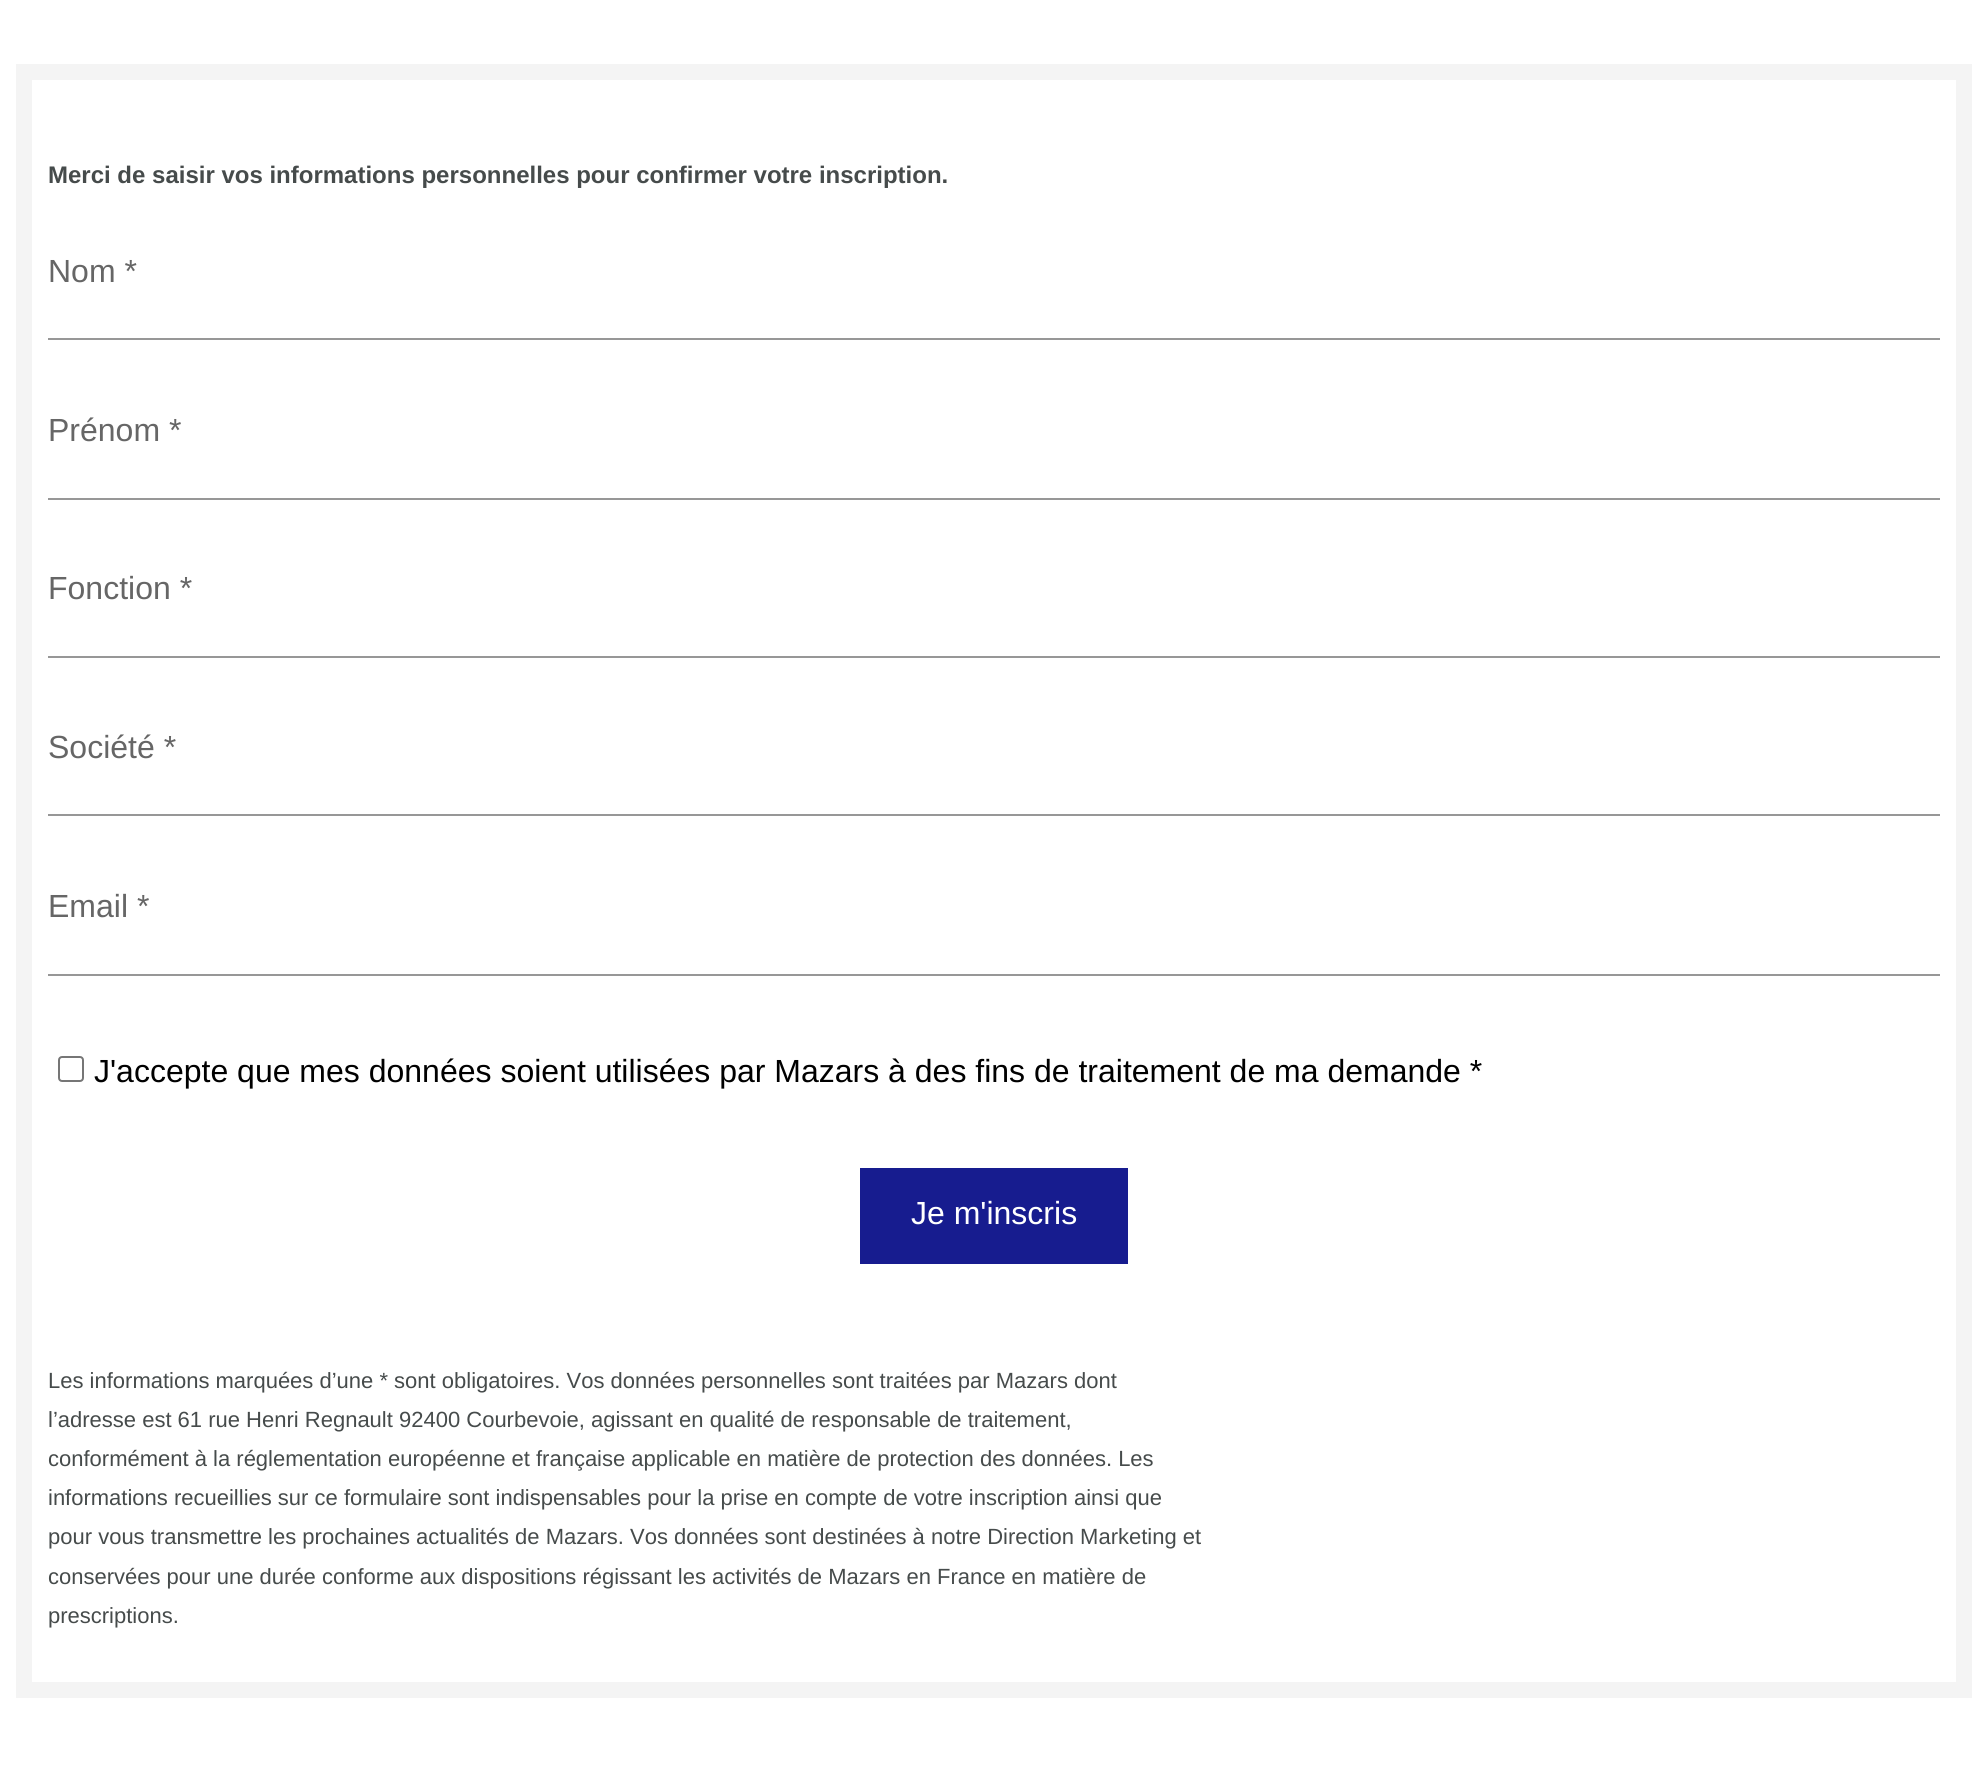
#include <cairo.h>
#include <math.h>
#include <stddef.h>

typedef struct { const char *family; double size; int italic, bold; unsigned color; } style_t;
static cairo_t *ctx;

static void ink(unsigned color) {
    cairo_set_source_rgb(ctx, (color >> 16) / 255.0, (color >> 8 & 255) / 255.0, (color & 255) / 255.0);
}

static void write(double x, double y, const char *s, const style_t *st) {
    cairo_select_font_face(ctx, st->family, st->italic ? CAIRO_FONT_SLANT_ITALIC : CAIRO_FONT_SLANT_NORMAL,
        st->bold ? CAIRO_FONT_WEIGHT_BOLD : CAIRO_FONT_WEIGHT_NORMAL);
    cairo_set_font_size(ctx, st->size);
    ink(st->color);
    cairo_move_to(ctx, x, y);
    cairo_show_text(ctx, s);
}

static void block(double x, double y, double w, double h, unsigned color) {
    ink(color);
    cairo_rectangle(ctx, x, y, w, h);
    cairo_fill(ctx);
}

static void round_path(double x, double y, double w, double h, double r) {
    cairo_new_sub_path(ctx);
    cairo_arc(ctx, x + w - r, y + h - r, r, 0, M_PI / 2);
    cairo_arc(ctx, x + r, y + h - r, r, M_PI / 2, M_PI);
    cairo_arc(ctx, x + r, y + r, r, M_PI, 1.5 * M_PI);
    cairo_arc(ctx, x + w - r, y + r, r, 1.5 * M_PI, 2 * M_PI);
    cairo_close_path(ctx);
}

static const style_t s1 = {"Liberation Sans", 24, 0, 1, 0x464b4b};
static const style_t s2 = {"Liberation Sans", 32, 0, 0, 0x666666};
static const style_t s3 = {"Liberation Sans", 32, 0, 0, 0x000000};
static const style_t s4 = {"Liberation Sans", 32, 0, 0, 0xffffff};
static const style_t s5 = {"Liberation Sans", 22, 0, 0, 0x464b4b};

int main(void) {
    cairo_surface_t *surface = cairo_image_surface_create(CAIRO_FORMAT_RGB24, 1988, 1791);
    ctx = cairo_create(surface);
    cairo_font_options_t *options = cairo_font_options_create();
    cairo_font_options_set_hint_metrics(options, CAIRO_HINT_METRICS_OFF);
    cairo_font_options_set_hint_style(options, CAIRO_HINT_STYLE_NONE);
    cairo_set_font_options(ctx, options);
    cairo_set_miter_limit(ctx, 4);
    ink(0xffffff);
    cairo_paint(ctx);
    cairo_rectangle(ctx, 24, 72, 1940, 1618);
    ink(0xf4f4f4);
    cairo_set_line_width(ctx, 16);
    cairo_stroke(ctx);
    write(48, 183, "Merci de saisir vos informations personnelles pour confirmer votre inscription.", &s1);
    write(48, 282, "Nom *", &s2);
    block(48, 338, 1892, 2, 0x979797);
    write(48, 441, "Prénom *", &s2);
    block(48, 498, 1892, 2, 0x979797);
    write(48, 599, "Fonction *", &s2);
    block(48, 656, 1892, 2, 0x979797);
    write(48, 758, "Société *", &s2);
    block(48, 814, 1892, 2, 0x979797);
    write(48, 917, "Email *", &s2);
    block(48, 974, 1892, 2, 0x979797);
    round_path(59, 1057, 24, 24, 3);
    ink(0x767676);
    cairo_set_line_width(ctx, 2);
    cairo_stroke(ctx);
    write(94, 1082, "J'accepte que mes données soient utilisées par Mazars à des fins de traitement de ma demande *", &s3);
    block(860, 1168, 268, 96, 0x171c8f);
    write(911, 1224, "Je m'inscris", &s4);
    write(48, 1388, "Les informations marquées d’une * sont obligatoires. Vos données personnelles sont traitées par Mazars dont", &s5);
    write(48, 1427, "l’adresse est 61 rue Henri Regnault 92400 Courbevoie, agissant en qualité de responsable de traitement,", &s5);
    write(48, 1466, "conformément à la réglementation européenne et française applicable en matière de protection des données. Les", &s5);
    write(48, 1505, "informations recueillies sur ce formulaire sont indispensables pour la prise en compte de votre inscription ainsi que", &s5);
    write(48, 1544, "pour vous transmettre les prochaines actualités de Mazars. Vos données sont destinées à notre Direction Marketing et", &s5);
    write(48, 1584, "conservées pour une durée conforme aux dispositions régissant les activités de Mazars en France en matière de", &s5);
    write(48, 1623, "prescriptions.", &s5);
    cairo_surface_write_to_png(surface, "screenshot.png");
    cairo_font_options_destroy(options);
    cairo_destroy(ctx);
    cairo_surface_destroy(surface);
    return 0;
}
